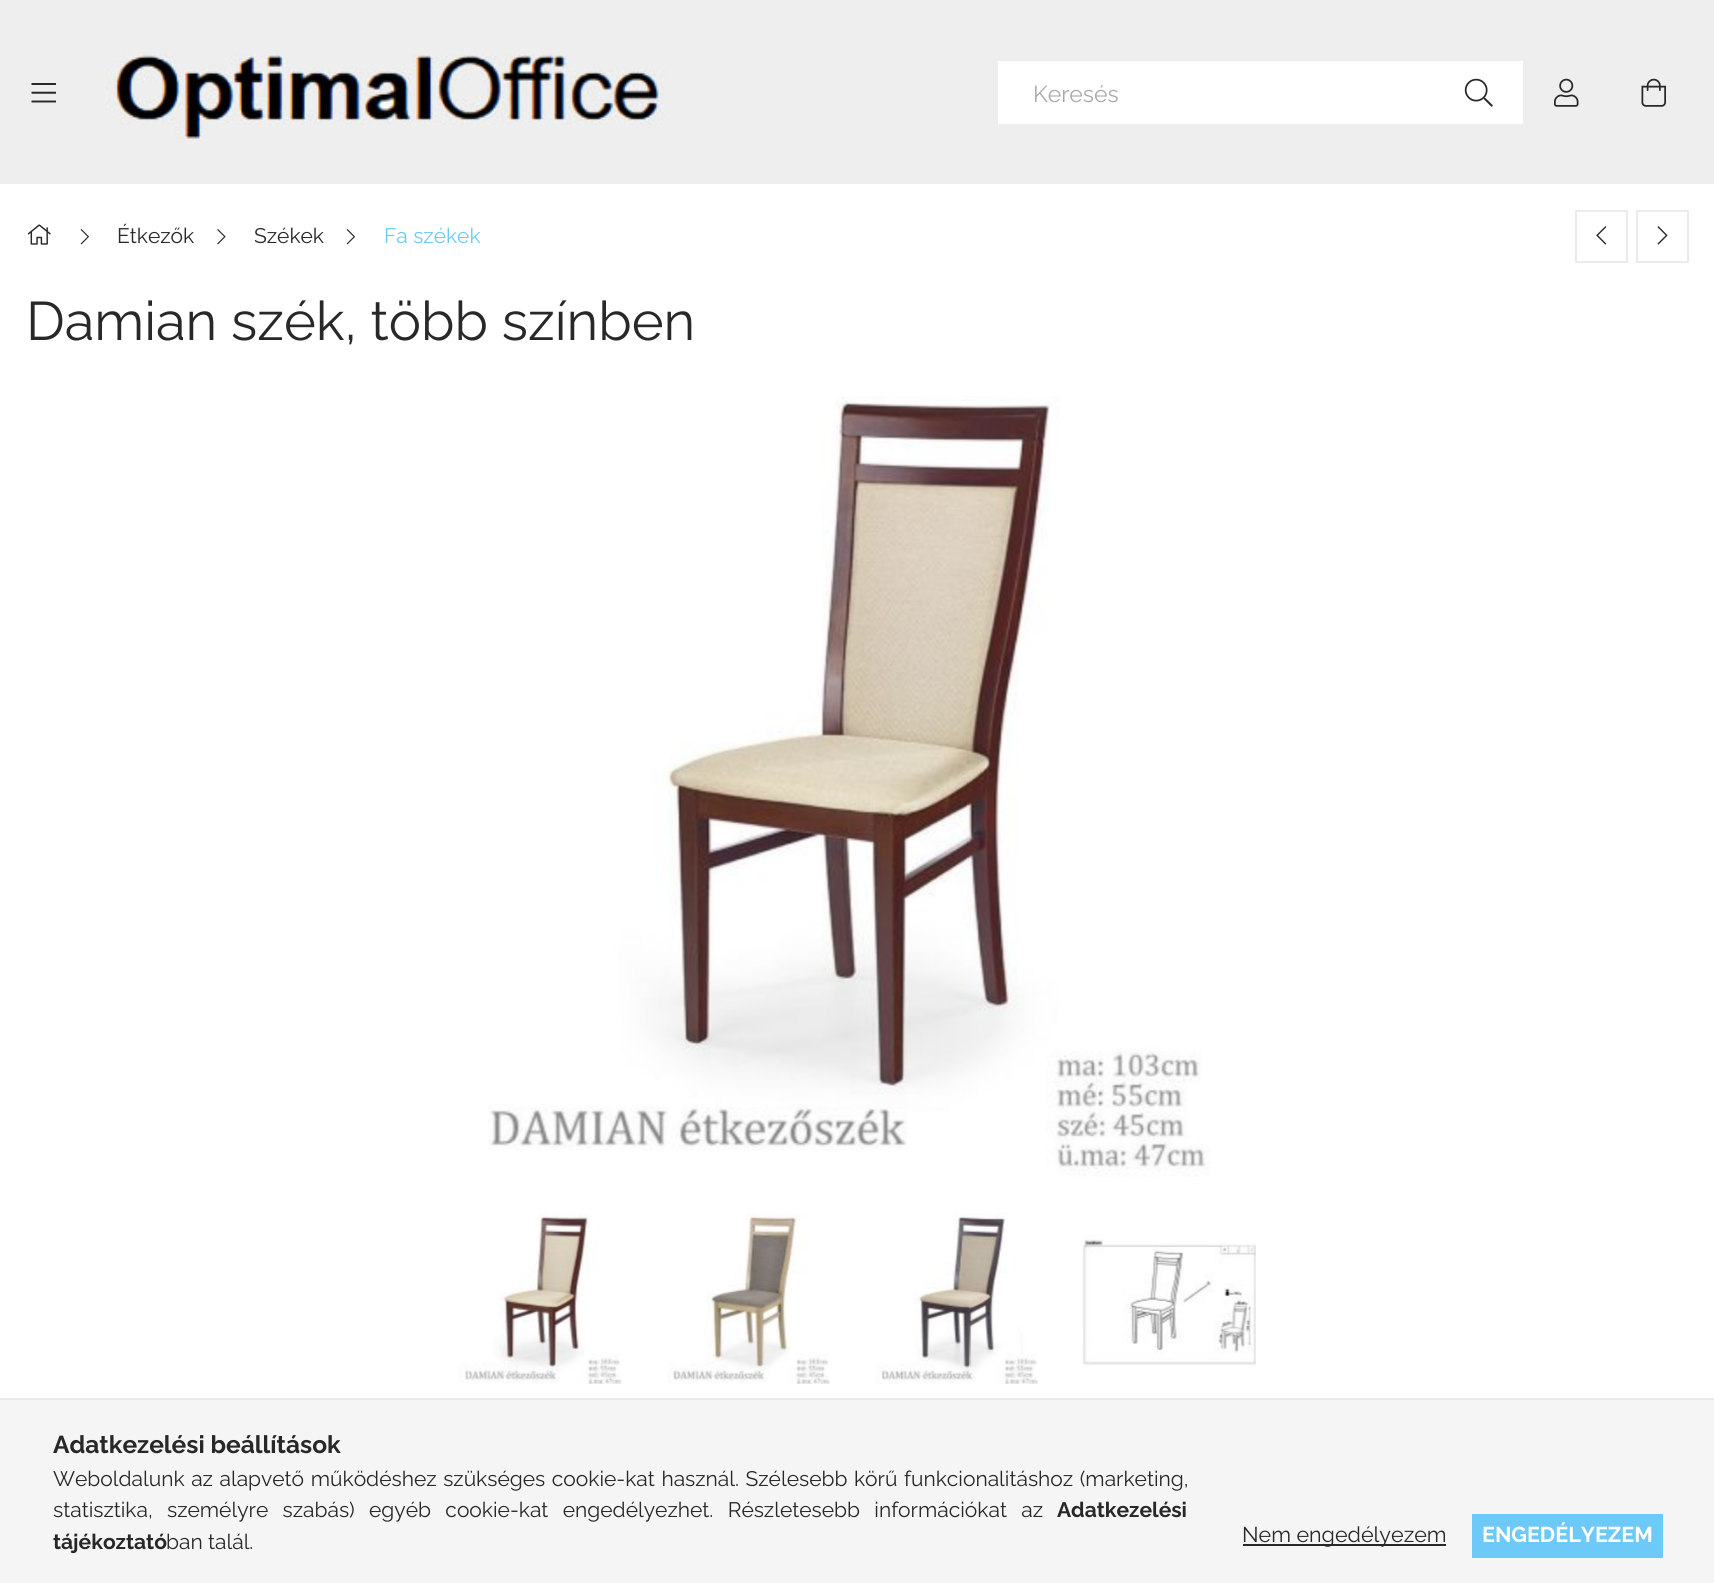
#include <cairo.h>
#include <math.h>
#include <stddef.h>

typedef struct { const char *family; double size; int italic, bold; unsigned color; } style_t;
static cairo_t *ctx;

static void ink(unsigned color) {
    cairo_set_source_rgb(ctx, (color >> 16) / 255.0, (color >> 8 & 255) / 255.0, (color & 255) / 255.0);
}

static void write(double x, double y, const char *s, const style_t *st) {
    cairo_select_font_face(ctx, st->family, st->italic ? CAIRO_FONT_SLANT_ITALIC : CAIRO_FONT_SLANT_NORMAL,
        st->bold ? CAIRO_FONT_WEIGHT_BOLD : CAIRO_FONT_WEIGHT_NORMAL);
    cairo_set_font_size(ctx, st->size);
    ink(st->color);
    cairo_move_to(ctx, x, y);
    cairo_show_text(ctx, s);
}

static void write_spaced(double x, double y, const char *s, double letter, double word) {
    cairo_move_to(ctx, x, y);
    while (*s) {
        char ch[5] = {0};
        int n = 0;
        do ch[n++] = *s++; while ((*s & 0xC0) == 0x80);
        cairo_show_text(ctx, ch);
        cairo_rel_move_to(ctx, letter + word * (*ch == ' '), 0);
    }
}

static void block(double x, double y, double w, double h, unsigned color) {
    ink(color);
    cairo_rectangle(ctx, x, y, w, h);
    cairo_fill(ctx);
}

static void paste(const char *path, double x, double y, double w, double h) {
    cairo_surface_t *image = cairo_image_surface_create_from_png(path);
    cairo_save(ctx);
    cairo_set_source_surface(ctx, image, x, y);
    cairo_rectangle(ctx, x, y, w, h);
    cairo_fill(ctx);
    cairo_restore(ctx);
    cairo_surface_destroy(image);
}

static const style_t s1 = {"Raleway", 23, 0, 0, 0xaaaaaa};
static const style_t s2 = {"Raleway", 21, 0, 0, 0x282828};
static const style_t s3 = {"Raleway", 21, 0, 0, 0x6dc9f7};
static const style_t s4 = {"Raleway", 54.25, 0, 0, 0x282828};
static const style_t s5 = {"Raleway", 24.5, 0, 1, 0x282828};
static const style_t s6 = {"Raleway", 21, 0, 1, 0x282828};
static const style_t s7 = {"Raleway", 21.5, 0, 0, 0x282828};
static const style_t s8 = {"Raleway", 21.5, 0, 1, 0xffffff};

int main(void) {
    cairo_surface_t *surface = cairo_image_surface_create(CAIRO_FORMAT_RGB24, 1714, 1583);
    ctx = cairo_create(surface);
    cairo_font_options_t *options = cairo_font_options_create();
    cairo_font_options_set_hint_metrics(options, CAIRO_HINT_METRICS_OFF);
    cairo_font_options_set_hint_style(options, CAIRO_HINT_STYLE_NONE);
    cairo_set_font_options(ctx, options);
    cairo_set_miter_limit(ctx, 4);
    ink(0xffffff);
    cairo_paint(ctx);
    block(0, 0, 1714, 184, 0xeeeeee);
    paste("pic1.png", 31, 83, 25, 20);
    paste("pic2.png", 105, 54, 560, 85);
    block(998, 61, 525, 63, 0xffffff);
    write(1033, 102, "Keresés", &s1);
    paste("pic3.png", 1464, 78, 29, 29);
    paste("pic4.png", 1554, 78, 25, 29);
    paste("pic5.png", 1641, 78, 25, 29);
    paste("pic6.png", 27, 224, 24, 21);
    paste("pic7.png", 80, 229, 9, 16);
    write(117, 243, "Étkezők", &s2);
    paste("pic8.png", 217, 229, 9, 16);
    write(254, 243, "Székek", &s2);
    paste("pic7.png", 346, 229, 9, 16);
    write(384, 243, "Fa székek", &s3);
    cairo_rectangle(ctx, 1576, 211, 51, 51);
    ink(0xeaeaea);
    cairo_stroke(ctx);
    paste("pic9.png", 1596, 226, 11, 19);
    cairo_rectangle(ctx, 1637, 211, 51, 51);
    cairo_stroke(ctx);
    paste("pic10.png", 1657, 226, 11, 19);
    write(26, 340, "Damian szék, több színben", &s4);
    paste("pic11.png", 488, 396, 722, 781);
    paste("pic12.png", 458, 1213, 164, 171);
    paste("pic13.png", 668, 1213, 162, 171);
    paste("pic14.png", 876, 1213, 162, 171);
    paste("pic15.png", 1082, 1235, 174, 131);
    block(0, 1400, 1714, 183, 0xf5f5f5);
    block(0, 1398, 1714, 2, 0xeaeaea);
    write(53, 1453, "Adatkezelési beállítások", &s5);
    cairo_select_font_face(ctx, "Raleway", CAIRO_FONT_SLANT_NORMAL, CAIRO_FONT_WEIGHT_NORMAL);
    cairo_set_font_size(ctx, 21);
    write_spaced(53, 1486, "Weboldalunk az alapvető működéshez szükséges cookie-kat használ. Szélesebb körű funkcionalitáshoz (marketing,", 0, 1.25);
    write_spaced(53, 1517, "statisztika, személyre szabás) egyéb cookie-kat engedélyezhet. Részletesebb információkat az", 0, 9);
    write(1057, 1517, "Adatkezelési", &s6);
    write(53, 1549, "tájékoztató", &s6);
    write(166, 1549, "ban talál.", &s2);
    block(1243, 1544, 203, 2, 0x282828);
    write(1242, 1542, "Nem engedélyezem", &s7);
    block(1472, 1514, 191, 44, 0x6dc9f7);
    write(1482, 1542, "ENGEDÉLYEZEM", &s8);
    cairo_surface_write_to_png(surface, "screenshot.png");
    cairo_font_options_destroy(options);
    cairo_destroy(ctx);
    cairo_surface_destroy(surface);
    return 0;
}
